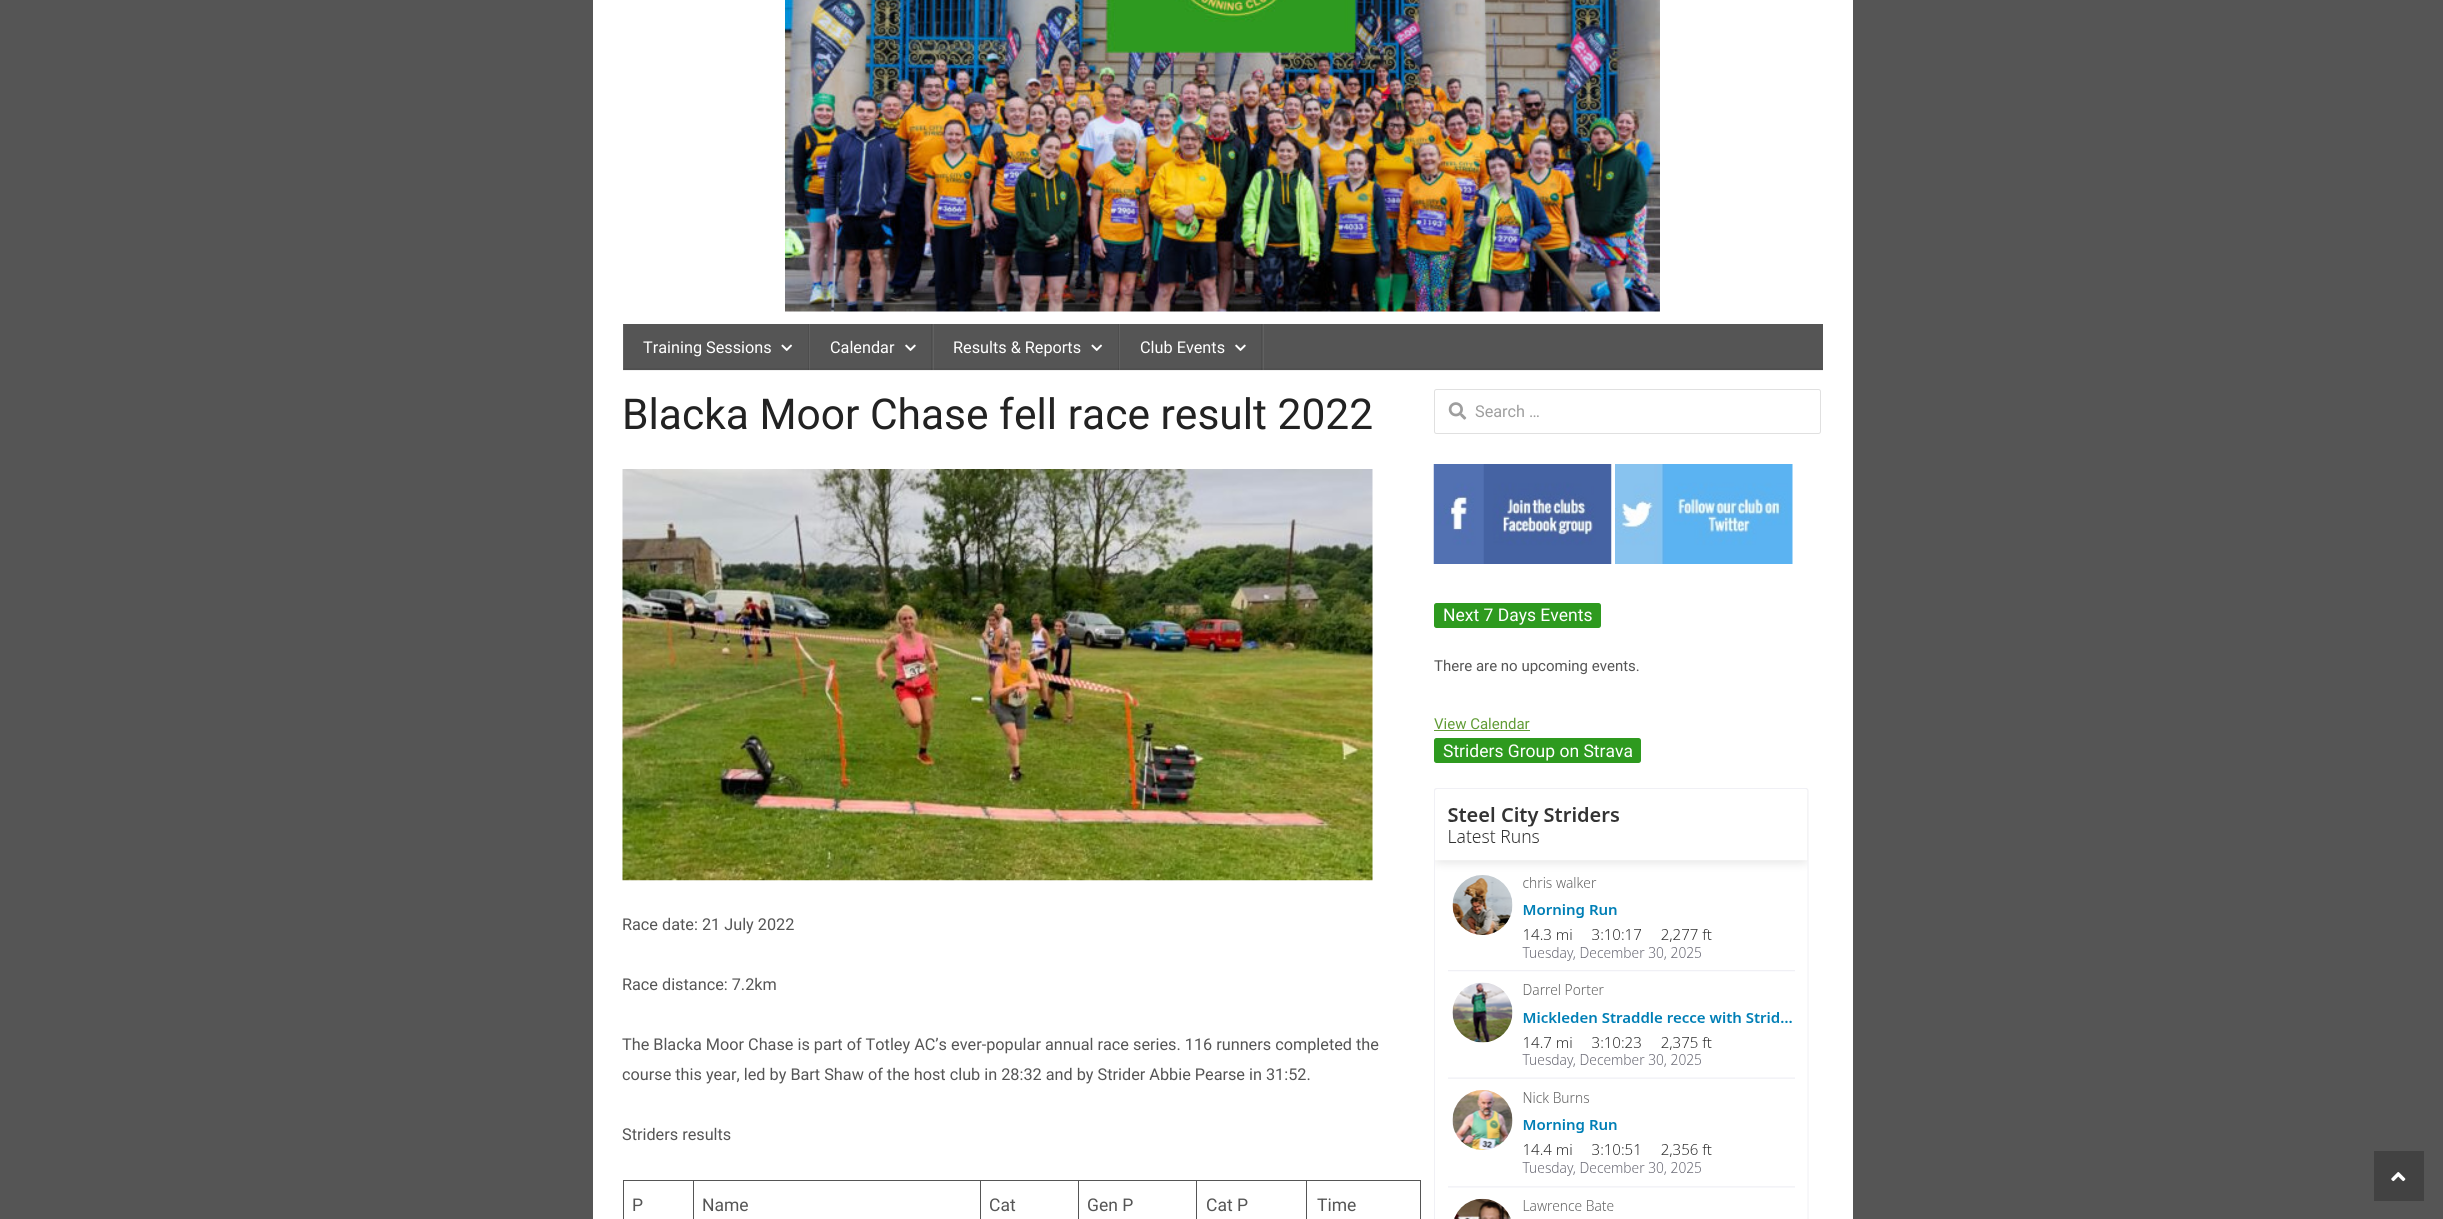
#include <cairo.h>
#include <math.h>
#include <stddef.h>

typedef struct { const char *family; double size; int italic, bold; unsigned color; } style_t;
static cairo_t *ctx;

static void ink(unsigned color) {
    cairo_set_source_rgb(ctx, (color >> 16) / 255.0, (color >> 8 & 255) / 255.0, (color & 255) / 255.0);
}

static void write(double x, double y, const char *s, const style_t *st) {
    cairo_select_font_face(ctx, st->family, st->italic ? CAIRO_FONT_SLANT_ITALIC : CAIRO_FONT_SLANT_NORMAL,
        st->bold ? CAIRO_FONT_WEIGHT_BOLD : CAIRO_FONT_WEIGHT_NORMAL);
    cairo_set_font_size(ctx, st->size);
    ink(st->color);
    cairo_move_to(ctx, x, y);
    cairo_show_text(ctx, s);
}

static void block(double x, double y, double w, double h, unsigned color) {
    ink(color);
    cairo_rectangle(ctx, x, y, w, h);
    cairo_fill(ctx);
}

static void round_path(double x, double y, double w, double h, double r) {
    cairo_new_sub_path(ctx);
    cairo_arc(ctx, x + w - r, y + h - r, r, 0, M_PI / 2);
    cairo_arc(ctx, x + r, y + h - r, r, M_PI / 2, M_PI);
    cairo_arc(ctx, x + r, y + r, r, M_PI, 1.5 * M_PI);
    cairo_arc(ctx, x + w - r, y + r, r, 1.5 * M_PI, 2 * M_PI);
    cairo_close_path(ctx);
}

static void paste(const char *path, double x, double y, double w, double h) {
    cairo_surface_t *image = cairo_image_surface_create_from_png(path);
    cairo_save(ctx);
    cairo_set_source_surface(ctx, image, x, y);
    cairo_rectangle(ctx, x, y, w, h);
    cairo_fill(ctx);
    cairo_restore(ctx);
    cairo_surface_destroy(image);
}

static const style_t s1 = {"Roboto", 16.25, 0, 0, 0xffffff};
static const style_t s2 = {"Roboto", 42.5, 0, 0, 0x222222};
static const style_t s3 = {"Roboto", 16.25, 0, 0, 0x555555};
static const style_t s4 = {"Roboto", 17.5, 0, 0, 0x555555};
static const style_t s5 = {"Roboto", 16.25, 0, 0, 0x9e9e9e};
static const style_t s6 = {"Roboto", 17.5, 0, 0, 0xffffff};
static const style_t s7 = {"Roboto", 15, 0, 0, 0x555555};
static const style_t s8 = {"Roboto", 15, 0, 0, 0x619c36};

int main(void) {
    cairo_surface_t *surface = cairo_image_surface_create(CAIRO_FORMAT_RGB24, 2443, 1219);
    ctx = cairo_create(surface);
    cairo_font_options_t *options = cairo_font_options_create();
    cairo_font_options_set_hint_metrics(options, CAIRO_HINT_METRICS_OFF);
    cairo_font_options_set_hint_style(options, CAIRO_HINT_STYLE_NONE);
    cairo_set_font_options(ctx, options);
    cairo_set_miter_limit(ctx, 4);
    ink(0x555555);
    cairo_paint(ctx);
    block(593, 0, 1260, 1219, 0xffffff);
    block(623, 370, 1200, 1, 0xf0f0f0);
    paste("pic1.png", 785, 0, 875, 312);
    block(624, 324, 1199, 44, 0x555555);
    block(1119, 324, 1, 46, 0x616161);
    block(1261, 324, 1, 46, 0x4d4d4d);
    block(1263, 324, 1, 46, 0x616161);
    block(933, 324, 1, 46, 0x616161);
    block(1118, 324, 1, 46, 0x4d4d4d);
    block(809, 324, 1, 46, 0x616161);
    block(931, 324, 1, 46, 0x4d4d4d);
    block(623, 324, 1, 46, 0x616161);
    block(808, 324, 1, 46, 0x4d4d4d);
    block(623, 368, 1200, 2, 0x505050);
    block(1119, 368, 1, 2, 0x5c5c5c);
    block(1261, 368, 1, 2, 0x484848);
    block(1263, 368, 1, 2, 0x5c5c5c);
    block(933, 368, 1, 2, 0x5c5c5c);
    block(1118, 368, 1, 2, 0x484848);
    block(809, 368, 1, 2, 0x5c5c5c);
    block(931, 368, 1, 2, 0x484848);
    block(623, 368, 1, 2, 0x5c5c5c);
    block(808, 368, 1, 2, 0x484848);
    write(643, 353, "Training Sessions", &s1);
    paste("pic2.png", 781, 344, 11, 7);
    write(830, 353, "Calendar", &s1);
    paste("pic3.png", 905, 344, 11, 7);
    write(953, 353, "Results & Reports", &s1);
    paste("pic2.png", 1091, 344, 11, 7);
    write(1140, 353, "Club Events", &s1);
    paste("pic3.png", 1235, 344, 11, 7);
    write(622, 429, "Blacka Moor Chase fell race result 2022", &s2);
    paste("pic4.png", 622, 469, 751, 412);
    write(622, 930, "Race date: 21 July 2022", &s3);
    write(622, 990, "Race distance: 7.2km", &s3);
    write(622, 1050, "The Blacka Moor Chase is part of Totley AC’s ever-popular annual race series. 116 runners completed the", &s3);
    write(622, 1080, "course this year, led by Bart Shaw of the host club in 28:32 and by Strider Abbie Pearse in 31:52.", &s3);
    write(622, 1140, "Striders results", &s3);
    block(1306, 1180, 115, 1, 0x555555);
    block(1306, 1180, 1, 39, 0x555555);
    block(1196, 1180, 112, 1, 0x555555);
    block(1196, 1180, 1, 39, 0x555555);
    block(1078, 1180, 120, 1, 0x555555);
    block(1078, 1180, 1, 39, 0x555555);
    block(980, 1180, 99, 1, 0x555555);
    block(980, 1180, 1, 39, 0x555555);
    block(693, 1180, 288, 1, 0x555555);
    block(693, 1180, 1, 39, 0x555555);
    block(623, 1180, 71, 1, 0x555555);
    block(623, 1180, 1, 39, 0x555555);
    write(632, 1211, "P", &s4);
    write(702, 1211, "Name", &s4);
    write(989, 1211, "Cat", &s4);
    write(1087, 1211, "Gen P", &s4);
    write(1206, 1211, "Cat P", &s4);
    block(1420, 1180, 1, 39, 0x555555);
    write(1317, 1211, "Time", &s4);
    round_path(1434.5, 389.5, 386, 44, 2);
    ink(0xe0e0e0);
    cairo_set_line_width(ctx, 1);
    cairo_stroke(ctx);
    paste("pic5.png", 1448, 402, 19, 18);
    write(1475, 417, "Search …", &s5);
    paste("pic6.png", 1433, 464, 179, 100);
    paste("pic7.png", 1615, 464, 178, 100);
    ink(0x2e9a1f);
    round_path(1434, 603, 167, 25, 2.5);
    cairo_fill(ctx);
    write(1443, 621, "Next 7 Days Events", &s6);
    write(1434, 671, "There are no upcoming events.", &s7);
    write(1434, 729, "View Calendar", &s8);
    block(1434, 730, 96, 1, 0x619c36);
    ink(0x2e9a1f);
    round_path(1434, 738, 207, 25, 2.5);
    cairo_fill(ctx);
    write(1443, 757, "Striders Group on Strava", &s6);
    paste("pic8.png", 1434, 788, 375, 431);
    block(2374, 1151, 50, 50, 0x424242);
    paste("pic9.png", 2391, 1172, 15, 10);
    cairo_surface_write_to_png(surface, "screenshot.png");
    cairo_font_options_destroy(options);
    cairo_destroy(ctx);
    cairo_surface_destroy(surface);
    return 0;
}
